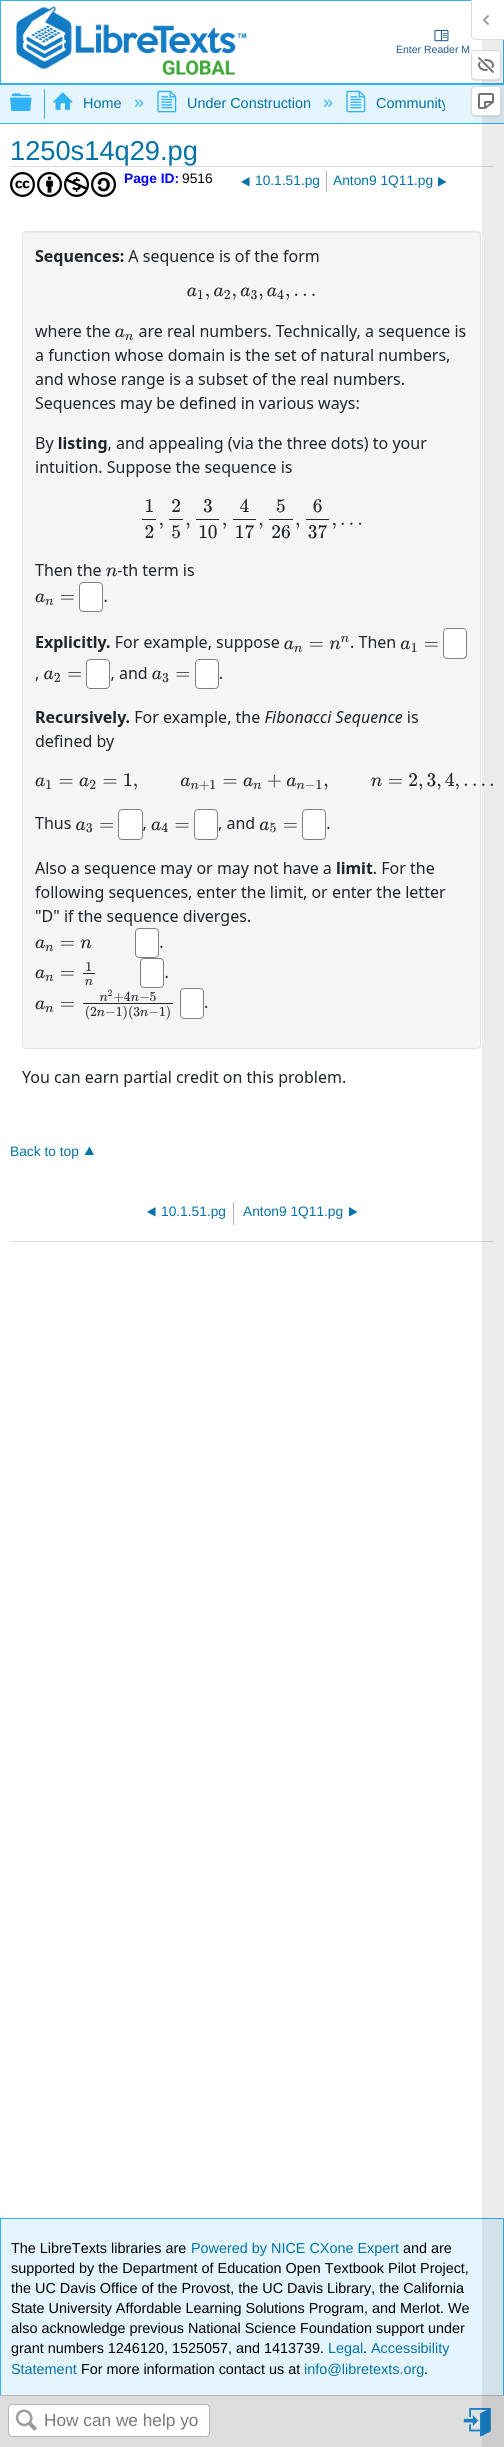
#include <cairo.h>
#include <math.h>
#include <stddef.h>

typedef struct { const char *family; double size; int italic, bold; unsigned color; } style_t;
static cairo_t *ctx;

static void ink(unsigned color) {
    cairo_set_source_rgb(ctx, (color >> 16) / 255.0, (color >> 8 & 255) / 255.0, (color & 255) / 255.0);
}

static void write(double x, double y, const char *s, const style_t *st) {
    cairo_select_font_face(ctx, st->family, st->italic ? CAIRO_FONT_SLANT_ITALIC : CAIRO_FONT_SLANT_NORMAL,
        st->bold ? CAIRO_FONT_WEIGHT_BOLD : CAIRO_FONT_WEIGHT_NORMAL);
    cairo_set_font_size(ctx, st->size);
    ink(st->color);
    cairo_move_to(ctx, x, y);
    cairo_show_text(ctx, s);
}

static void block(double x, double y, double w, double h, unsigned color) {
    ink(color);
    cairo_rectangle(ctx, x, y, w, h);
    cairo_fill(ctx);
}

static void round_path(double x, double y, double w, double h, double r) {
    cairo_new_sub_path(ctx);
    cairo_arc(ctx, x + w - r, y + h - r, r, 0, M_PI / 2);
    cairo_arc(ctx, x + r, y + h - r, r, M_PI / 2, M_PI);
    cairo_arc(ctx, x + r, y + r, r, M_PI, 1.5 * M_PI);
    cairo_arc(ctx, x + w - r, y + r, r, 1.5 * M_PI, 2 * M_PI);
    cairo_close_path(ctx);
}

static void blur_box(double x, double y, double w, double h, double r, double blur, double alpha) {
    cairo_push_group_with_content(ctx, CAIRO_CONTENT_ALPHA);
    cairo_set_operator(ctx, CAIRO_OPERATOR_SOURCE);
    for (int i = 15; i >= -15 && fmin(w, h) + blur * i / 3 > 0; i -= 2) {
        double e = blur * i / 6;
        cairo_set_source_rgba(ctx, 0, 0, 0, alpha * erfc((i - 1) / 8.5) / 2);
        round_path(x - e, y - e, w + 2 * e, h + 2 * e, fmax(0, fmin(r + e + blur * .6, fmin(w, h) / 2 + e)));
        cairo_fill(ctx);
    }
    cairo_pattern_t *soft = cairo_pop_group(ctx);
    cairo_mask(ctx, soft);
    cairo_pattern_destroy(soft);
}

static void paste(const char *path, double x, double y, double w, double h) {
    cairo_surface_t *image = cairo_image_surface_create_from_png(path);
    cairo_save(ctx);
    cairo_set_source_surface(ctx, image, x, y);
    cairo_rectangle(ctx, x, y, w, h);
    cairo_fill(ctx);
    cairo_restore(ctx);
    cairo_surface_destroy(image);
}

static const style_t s1 = {"Liberation Sans", 10.5, 0, 0, 0x235a8b};
static const style_t s2 = {"Liberation Sans", 14.4, 0, 0, 0x0372a6};
static const style_t s3 = {"Liberation Sans", 18, 0, 0, 0x30b3f6};
static const style_t s4 = {"Liberation Sans", 17.25, 0, 0, 0x797979};
static const style_t s5 = {"Liberation Sans", 27.25, 0, 0, 0x0372a6};
static const style_t s6 = {"Liberation Sans", 13.75, 0, 1, 0x0000ff};
static const style_t s7 = {"Liberation Sans", 13.75, 0, 0, 0x000000};
static const style_t s8 = {"Liberation Sans", 13.75, 0, 0, 0x0372a6};
static const style_t s9 = {"Liberation Sans", 14.4, 0, 0, 0x000000};

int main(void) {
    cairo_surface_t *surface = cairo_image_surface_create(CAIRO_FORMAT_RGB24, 504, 2447);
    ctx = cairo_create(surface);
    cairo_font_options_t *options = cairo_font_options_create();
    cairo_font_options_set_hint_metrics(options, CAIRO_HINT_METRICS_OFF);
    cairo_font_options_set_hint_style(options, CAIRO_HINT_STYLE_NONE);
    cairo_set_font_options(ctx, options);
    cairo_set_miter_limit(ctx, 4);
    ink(0xffffff);
    cairo_paint(ctx);
    cairo_rectangle(ctx, 0.5, 0.5, 503, 83);
    ink(0x30b3f6);
    cairo_set_line_width(ctx, 1);
    cairo_stroke(ctx);
    paste("pic1.png", 16, 6, 231, 69);
    paste("pic2.png", 434, 29, 15, 13);
    write(396, 53, "Enter Reader M", &s1);
    block(0, 85, 504, 38, 0xe5f5fe);
    block(0, 84, 504, 1, 0x30b3f6);
    block(0, 123, 504, 1, 0x30b3f6);
    paste("pic3.png", 10, 93, 22, 18);
    block(44, 89, 1, 30, 0x30b3f6);
    paste("pic4.png", 53, 92, 20, 18);
    write(83, 108, "Home", &s2);
    write(134, 108, "»", &s3);
    paste("pic5.png", 157, 90, 20, 23);
    write(187, 108, "Under Construction", &s2);
    write(323, 108, "»", &s3);
    paste("pic5.png", 346, 90, 20, 23);
    cairo_save(ctx);
    cairo_rectangle(ctx, 45, 89, 400, 30);
    cairo_clip(ctx);
    write(376, 108, "Community", &s2);
    cairo_restore(ctx);
    ink(0xe5f5fe);
    cairo_rectangle(ctx, 0.5, 2218.5, 503, 179);
    cairo_fill_preserve(ctx);
    ink(0x30b3f6);
    cairo_stroke(ctx);
    cairo_set_source_rgba(ctx, 0.867, 0.867, 0.867, 0.97);
    cairo_rectangle(ctx, 0, 2396, 504, 51);
    cairo_fill(ctx);
    cairo_set_source_rgba(ctx, 0.706, 0.706, 0.706, 0.97);
    cairo_rectangle(ctx, 0, 2395, 504, 1);
    cairo_fill(ctx);
    ink(0xffffff);
    round_path(8.5, 2404.5, 201, 32, 3.5);
    cairo_fill_preserve(ctx);
    ink(0xb6b6b6);
    cairo_stroke(ctx);
    paste("pic6.png", 15, 2409, 22, 22);
    write(44, 2426, "How can we help yo", &s4);
    paste("pic7.png", 463, 2408, 28, 29);
    block(10, 166, 484, 1, 0xdddddd);
    write(10, 160, "1250s14q29.pg", &s5);
    paste("pic8.png", 10, 172, 25, 25);
    paste("pic9.png", 37, 172, 25, 25);
    paste("pic10.png", 64, 172, 25, 25);
    paste("pic11.png", 91, 172, 25, 25);
    write(124, 183, "Page ID:", &s6);
    write(182, 183, "9516", &s7);
    block(326, 171, 1, 21, 0xb4b4b4);
    ink(0x0372a6);
    cairo_new_path(ctx);
    cairo_move_to(ctx, 249.5, 177);
    cairo_line_to(ctx, 249.5, 186.5);
    cairo_line_to(ctx, 241, 182);
    cairo_close_path(ctx);
    cairo_fill(ctx);
    write(255, 185, "10.1.51.pg", &s8);
    write(333, 185, "Anton9 1Q11.pg", &s8);
    cairo_new_path(ctx);
    cairo_move_to(ctx, 438, 177);
    cairo_line_to(ctx, 438, 186.5);
    cairo_line_to(ctx, 446.5, 182);
    cairo_close_path(ctx);
    cairo_fill(ctx);
    paste("pic12.png", 22, 231, 471, 856);
    block(10, 1241, 484, 1, 0xdddddd);
    write(10, 1156, "Back to top", &s8);
    cairo_new_path(ctx);
    cairo_move_to(ctx, 84.5, 1155);
    cairo_line_to(ctx, 94, 1155);
    cairo_line_to(ctx, 89.5, 1146.5);
    cairo_close_path(ctx);
    cairo_fill(ctx);
    block(233, 1202, 1, 23, 0xb4b4b4);
    ink(0x0372a6);
    cairo_new_path(ctx);
    cairo_move_to(ctx, 155.5, 1207);
    cairo_line_to(ctx, 155.5, 1216.5);
    cairo_line_to(ctx, 147, 1212);
    cairo_close_path(ctx);
    cairo_fill(ctx);
    write(161, 1216, "10.1.51.pg", &s8);
    write(243, 1216, "Anton9 1Q11.pg", &s8);
    cairo_new_path(ctx);
    cairo_move_to(ctx, 349, 1207);
    cairo_line_to(ctx, 349, 1216.5);
    cairo_line_to(ctx, 357.5, 1212);
    cairo_close_path(ctx);
    cairo_fill(ctx);
    write(11, 2253, "The LibreTexts libraries are", &s9);
    write(191, 2253, "Powered by NICE CXone Expert", &s2);
    write(403, 2253, "and are", &s9);
    write(11, 2273, "supported by the Department of Education Open Textbook Pilot Project,", &s9);
    write(11, 2293, "the UC Davis Office of the Provost, the UC Davis Library, the California", &s9);
    write(11, 2313, "State University Affordable Learning Solutions Program, and Merlot. We", &s9);
    write(11, 2333, "also acknowledge previous National Science Foundation support under", &s9);
    write(11, 2353, "grant numbers 1246120, 1525057, and 1413739.", &s9);
    write(328, 2353, "Legal", &s2);
    write(363, 2353, ".", &s9);
    write(371, 2353, "Accessibility", &s2);
    write(11, 2374, "Statement", &s2);
    write(81, 2374, "For more information contact us at", &s9);
    write(304, 2374, "info@libretexts.org", &s2);
    write(424, 2374, ".", &s9);
    cairo_set_source_rgba(ctx, 0, 0, 0, 0.08);
    cairo_rectangle(ctx, 482, 40, 22, 2407);
    cairo_fill(ctx);
    ink(0xffffff);
    cairo_new_path(ctx);
    cairo_move_to(ctx, 472, 0);
    cairo_line_to(ctx, 504, 0);
    cairo_line_to(ctx, 504, 39);
    cairo_line_to(ctx, 475, 39);
    cairo_curve_to(ctx, 473.5, 39, 472, 37.5, 472, 36);
    cairo_close_path(ctx);
    cairo_fill(ctx);
    ink(0xdbdbdb);
    cairo_set_fill_rule(ctx, CAIRO_FILL_RULE_EVEN_ODD);
    cairo_new_path(ctx);
    cairo_move_to(ctx, 471, 0);
    cairo_line_to(ctx, 504, 0);
    cairo_line_to(ctx, 504, 40);
    cairo_line_to(ctx, 475, 40);
    cairo_curve_to(ctx, 473, 40, 471, 38, 471, 36);
    cairo_close_path(ctx);
    cairo_move_to(ctx, 472, 0);
    cairo_line_to(ctx, 504, 0);
    cairo_line_to(ctx, 504, 39);
    cairo_line_to(ctx, 475, 39);
    cairo_curve_to(ctx, 473, 39, 472, 38, 472, 36);
    cairo_close_path(ctx);
    cairo_fill(ctx);
    paste("pic13.png", 483, 15, 6, 10);
    ink(0x000000);
    blur_box(471, 51, 30, 30, 4, 0.5, 0.1);
    ink(0xffffff);
    round_path(471.5, 50.5, 29, 29, 3.5);
    cairo_fill_preserve(ctx);
    ink(0xdbdbdb);
    cairo_stroke(ctx);
    paste("pic14.png", 478, 57, 16, 16);
    ink(0x000000);
    blur_box(471, 87, 30, 30, 4, 0.5, 0.1);
    ink(0xffffff);
    round_path(471.5, 86.5, 29, 29, 3.5);
    cairo_fill_preserve(ctx);
    ink(0xdbdbdb);
    cairo_stroke(ctx);
    paste("pic15.png", 478, 93, 16, 16);
    cairo_surface_write_to_png(surface, "screenshot.png");
    cairo_font_options_destroy(options);
    cairo_destroy(ctx);
    cairo_surface_destroy(surface);
    return 0;
}
